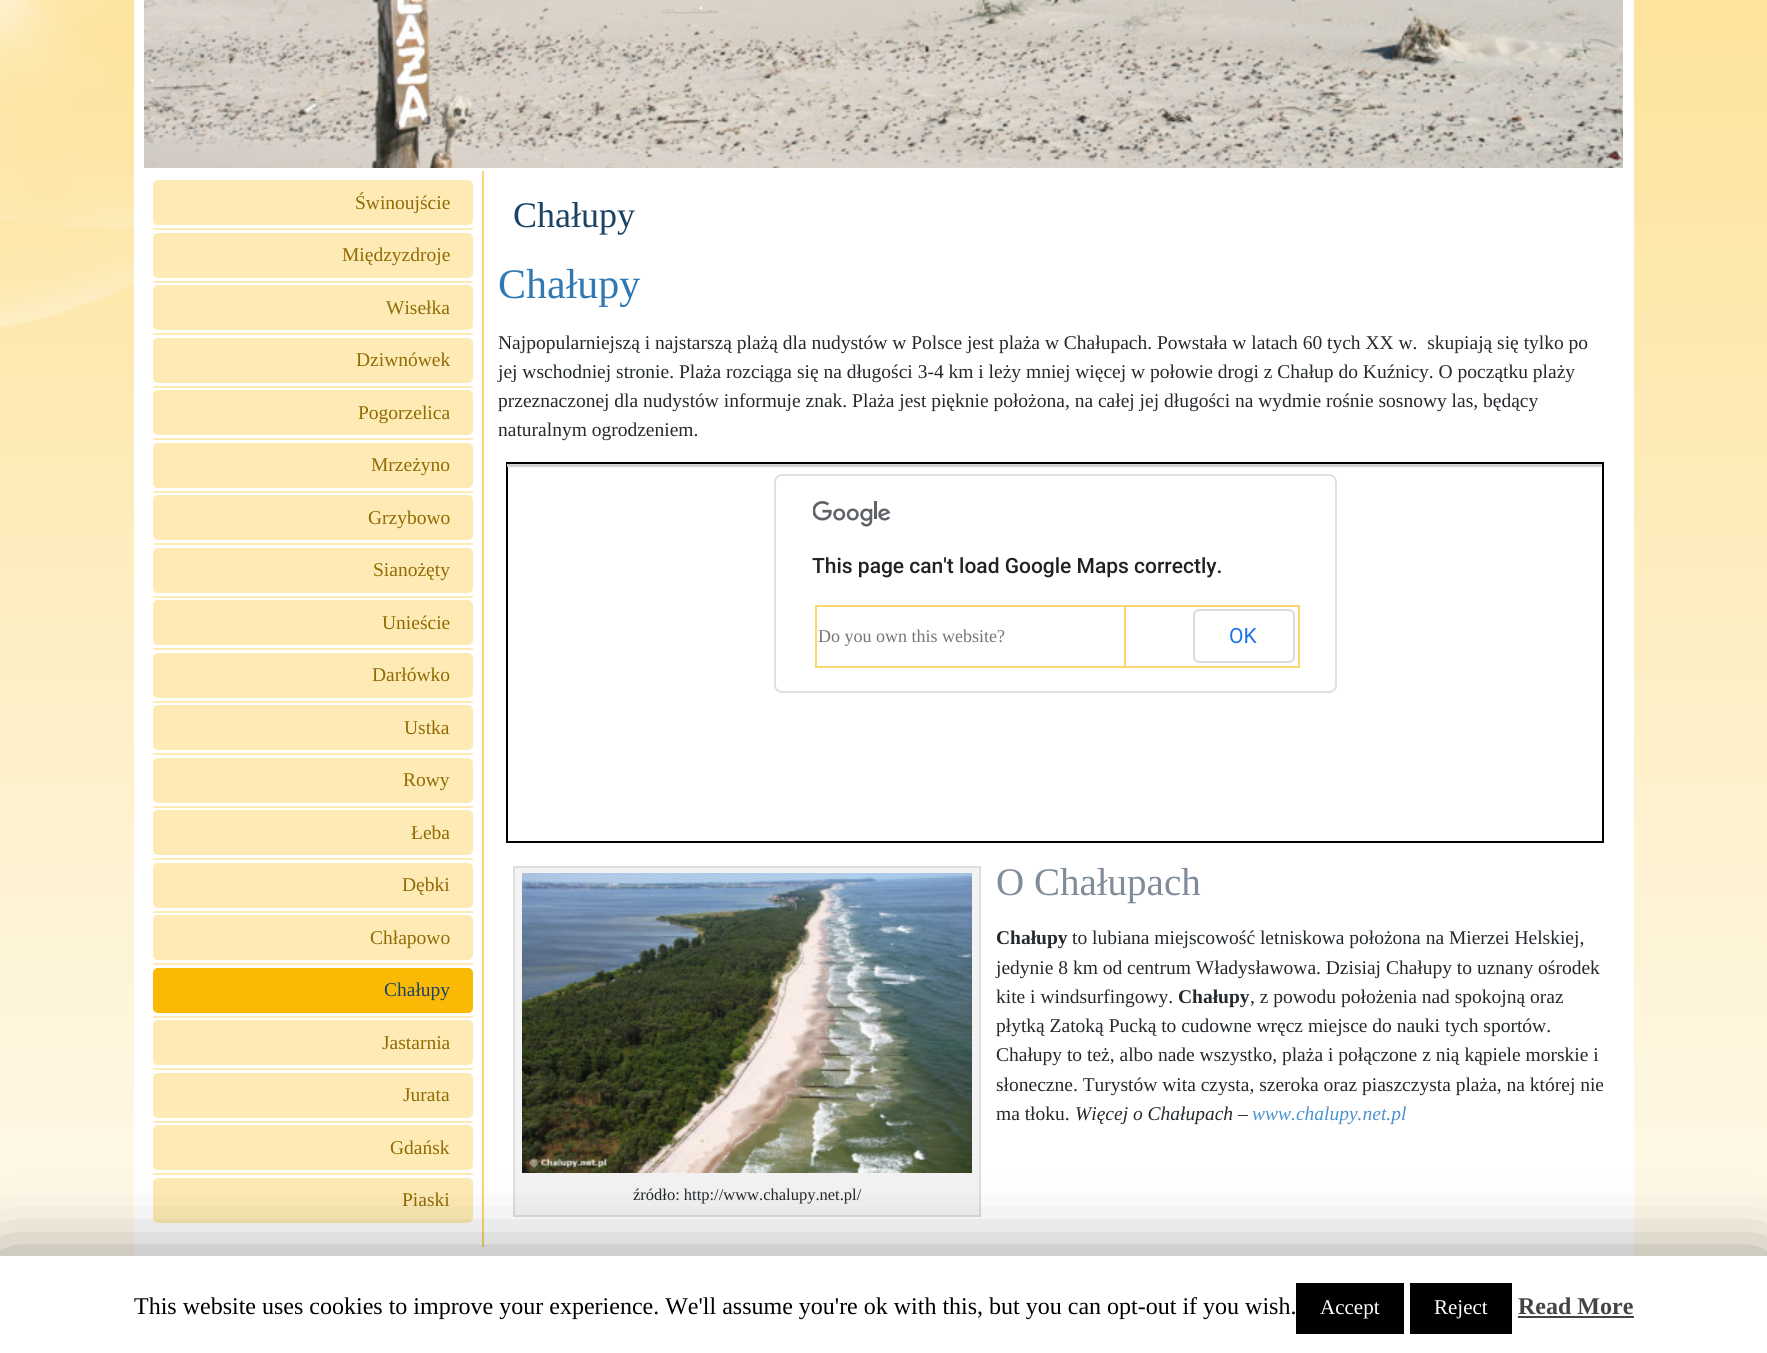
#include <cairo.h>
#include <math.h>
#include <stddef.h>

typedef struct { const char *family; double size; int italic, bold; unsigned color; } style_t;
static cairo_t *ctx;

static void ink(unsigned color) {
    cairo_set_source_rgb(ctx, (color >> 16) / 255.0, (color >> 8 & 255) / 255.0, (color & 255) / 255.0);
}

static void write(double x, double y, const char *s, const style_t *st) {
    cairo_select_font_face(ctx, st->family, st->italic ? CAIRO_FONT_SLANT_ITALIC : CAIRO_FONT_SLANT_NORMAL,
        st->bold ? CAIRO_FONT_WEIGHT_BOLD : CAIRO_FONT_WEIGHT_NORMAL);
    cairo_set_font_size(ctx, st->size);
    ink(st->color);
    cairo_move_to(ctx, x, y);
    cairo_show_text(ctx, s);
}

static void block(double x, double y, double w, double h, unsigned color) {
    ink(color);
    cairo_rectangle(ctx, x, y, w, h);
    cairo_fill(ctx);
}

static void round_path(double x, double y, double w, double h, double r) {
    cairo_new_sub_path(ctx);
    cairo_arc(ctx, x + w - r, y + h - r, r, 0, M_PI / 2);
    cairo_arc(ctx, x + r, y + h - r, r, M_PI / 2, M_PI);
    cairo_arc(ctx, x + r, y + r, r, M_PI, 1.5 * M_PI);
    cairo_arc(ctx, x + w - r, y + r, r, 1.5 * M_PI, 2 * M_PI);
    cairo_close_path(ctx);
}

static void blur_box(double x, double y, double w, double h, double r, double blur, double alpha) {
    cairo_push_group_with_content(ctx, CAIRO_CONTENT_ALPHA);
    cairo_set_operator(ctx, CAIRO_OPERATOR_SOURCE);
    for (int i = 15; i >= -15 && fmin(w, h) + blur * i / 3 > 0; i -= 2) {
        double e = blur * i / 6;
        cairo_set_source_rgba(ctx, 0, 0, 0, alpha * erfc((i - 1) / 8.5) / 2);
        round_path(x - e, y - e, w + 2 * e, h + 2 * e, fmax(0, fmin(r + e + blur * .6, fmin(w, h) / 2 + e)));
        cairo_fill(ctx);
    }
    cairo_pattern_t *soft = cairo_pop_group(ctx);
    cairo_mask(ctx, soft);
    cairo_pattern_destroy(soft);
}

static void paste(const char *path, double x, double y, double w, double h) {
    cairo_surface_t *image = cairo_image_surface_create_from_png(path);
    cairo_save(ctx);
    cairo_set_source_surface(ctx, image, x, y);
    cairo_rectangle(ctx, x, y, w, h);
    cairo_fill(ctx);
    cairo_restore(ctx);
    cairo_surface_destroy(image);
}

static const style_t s1 = {"Liberation Serif", 19.5, 0, 0, 0x916b03};
static const style_t s2 = {"Liberation Serif", 19.5, 0, 0, 0x1b4365};
static const style_t s3 = {"Liberation Serif", 36, 0, 0, 0x1b4365};
static const style_t s4 = {"Liberation Serif", 42, 0, 0, 0x3079b5};
static const style_t s5 = {"Liberation Serif", 19.5, 0, 0, 0x24292d};
static const style_t s6 = {"Roboto Medium", 21, 0, 0, 0x212121};
static const style_t s7 = {"Liberation Serif", 18, 0, 0, 0x757575};
static const style_t s8 = {"Roboto", 21, 0, 0, 0x1a73e8};
static const style_t s9 = {"Liberation Serif", 39, 0, 0, 0x808c99};
static const style_t s10 = {"Liberation Serif", 19.5, 0, 1, 0x24292d};
static const style_t s11 = {"Liberation Serif", 19.5, 1, 0, 0x24292d};
static const style_t s12 = {"Liberation Serif", 19.5, 1, 0, 0x4a93cf};
static const style_t s13 = {"Liberation Serif", 16.5, 0, 0, 0x24292d};
static const style_t s14 = {"Liberation Serif", 24, 0, 0, 0x000000};
static const style_t s15 = {"Liberation Serif", 21, 0, 0, 0xffffff};
static const style_t s16 = {"Liberation Serif", 24, 0, 1, 0x444444};

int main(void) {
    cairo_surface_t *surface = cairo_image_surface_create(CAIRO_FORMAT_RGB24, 1767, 1353);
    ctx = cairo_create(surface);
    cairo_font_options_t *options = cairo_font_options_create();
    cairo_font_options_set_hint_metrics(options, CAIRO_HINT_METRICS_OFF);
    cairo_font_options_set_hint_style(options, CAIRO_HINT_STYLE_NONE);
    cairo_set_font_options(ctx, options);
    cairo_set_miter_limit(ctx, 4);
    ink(0xffffff);
    cairo_paint(ctx);
    paste("pic1.png", 0, 0, 1767, 1256);
    block(134, 0, 1500, 1256, 0xffffff);
    paste("pic2.png", 144, 0, 1479, 168);
    block(482, 171, 2, 1076, 0xfcd66e);
    ink(0xfdeab4);
    round_path(153, 180, 320, 45, 5);
    cairo_fill(ctx);
    write(355, 209, "Świnoujście", &s1);
    block(153, 228, 320, 2, 0xfdeab4);
    round_path(153, 233, 320, 45, 5);
    cairo_fill(ctx);
    write(342, 261, "Międzyzdroje", &s1);
    block(153, 281, 320, 2, 0xfdeab4);
    round_path(153, 285, 320, 45, 5);
    cairo_fill(ctx);
    write(386, 314, "Wisełka", &s1);
    block(153, 333, 320, 2, 0xfdeab4);
    round_path(153, 338, 320, 45, 5);
    cairo_fill(ctx);
    write(356, 366, "Dziwnówek", &s1);
    block(153, 386, 320, 2, 0xfdeab4);
    round_path(153, 390, 320, 45, 5);
    cairo_fill(ctx);
    write(358, 419, "Pogorzelica", &s1);
    block(153, 438, 320, 2, 0xfdeab4);
    round_path(153, 443, 320, 45, 5);
    cairo_fill(ctx);
    write(371, 471, "Mrzeżyno", &s1);
    block(153, 491, 320, 2, 0xfdeab4);
    round_path(153, 495, 320, 45, 5);
    cairo_fill(ctx);
    write(368, 524, "Grzybowo", &s1);
    block(153, 543, 320, 2, 0xfdeab4);
    round_path(153, 548, 320, 45, 5);
    cairo_fill(ctx);
    write(373, 576, "Sianożęty", &s1);
    block(153, 596, 320, 2, 0xfdeab4);
    round_path(153, 600, 320, 45, 5);
    cairo_fill(ctx);
    write(382, 629, "Unieście", &s1);
    block(153, 648, 320, 2, 0xfdeab4);
    round_path(153, 653, 320, 45, 5);
    cairo_fill(ctx);
    write(372, 681, "Darłówko", &s1);
    block(153, 701, 320, 2, 0xfdeab4);
    round_path(153, 705, 320, 45, 5);
    cairo_fill(ctx);
    write(404, 734, "Ustka", &s1);
    block(153, 753, 320, 2, 0xfdeab4);
    round_path(153, 758, 320, 45, 5);
    cairo_fill(ctx);
    write(403, 786, "Rowy", &s1);
    block(153, 806, 320, 2, 0xfdeab4);
    round_path(153, 810, 320, 45, 5);
    cairo_fill(ctx);
    write(411, 839, "Łeba", &s1);
    block(153, 858, 320, 2, 0xfdeab4);
    round_path(153, 863, 320, 45, 5);
    cairo_fill(ctx);
    write(402, 891, "Dębki", &s1);
    block(153, 911, 320, 2, 0xfdeab4);
    round_path(153, 915, 320, 45, 5);
    cairo_fill(ctx);
    write(370, 944, "Chłapowo", &s1);
    block(153, 963, 320, 2, 0xfdeab4);
    ink(0xfab905);
    round_path(153, 968, 320, 45, 5);
    cairo_fill(ctx);
    write(384, 996, "Chałupy", &s2);
    block(153, 1016, 320, 2, 0xfdeab4);
    round_path(153, 1020, 320, 45, 5);
    cairo_fill(ctx);
    write(382, 1049, "Jastarnia", &s1);
    block(153, 1068, 320, 2, 0xfdeab4);
    round_path(153, 1073, 320, 45, 5);
    cairo_fill(ctx);
    write(403, 1101, "Jurata", &s1);
    block(153, 1121, 320, 2, 0xfdeab4);
    round_path(153, 1125, 320, 45, 5);
    cairo_fill(ctx);
    write(390, 1154, "Gdańsk", &s1);
    block(153, 1173, 320, 2, 0xfdeab4);
    round_path(153, 1178, 320, 45, 5);
    cairo_fill(ctx);
    write(402, 1206, "Piaski", &s1);
    write(513, 227, "Chałupy", &s3);
    write(498, 298, "Chałupy", &s4);
    write(498, 349, "Najpopularniejszą i najstarszą plażą dla nudystów w Polsce jest plaża w Chałupach. Powstała w latach 60 tych XX w.  skupiają się tylko po", &s5);
    write(498, 378, "jej wschodniej stronie. Plaża rozciąga się na długości 3-4 km i leży mniej więcej w połowie drogi z Chałup do Kuźnicy. O początku plaży", &s5);
    write(498, 407, "przeznaczonej dla nudystów informuje znak. Plaża jest pięknie położona, na całej jej długości na wydmie rośnie sosnowy las, będący", &s5);
    write(498, 436, "naturalnym ogrodzeniem.", &s5);
    cairo_rectangle(ctx, 507, 463, 1096, 379);
    ink(0x000000);
    cairo_stroke(ctx);
    block(507, 464, 1095, 3, 0xd3d3d3);
    round_path(775, 475, 561, 217, 7);
    ink(0xe0e0e0);
    cairo_stroke(ctx);
    paste("pic3.png", 813, 501, 78, 26);
    write(812, 573, "This page can't load Google Maps correctly.", &s6);
    block(1124, 605, 175, 2, 0xfcd66e);
    block(1298, 605, 2, 63, 0xfcd66e);
    block(1124, 666, 175, 2, 0xfcd66e);
    block(1124, 605, 2, 63, 0xfcd66e);
    block(815, 605, 310, 2, 0xfcd66e);
    block(815, 666, 310, 2, 0xfcd66e);
    block(815, 605, 2, 63, 0xfcd66e);
    write(818, 642, "Do you own this website?", &s7);
    round_path(1194, 610, 100, 52, 5);
    ink(0xdadce0);
    cairo_stroke(ctx);
    write(1229, 643, "OK", &s8);
    write(996, 895, "O Chałupach", &s9);
    write(996, 944, "Chałupy", &s10);
    write(1072, 944, "to lubiana miejscowość letniskowa położona na Mierzei Helskiej,", &s5);
    write(996, 974, "jedynie 8 km od centrum Władysławowa. Dzisiaj Chałupy to uznany ośrodek", &s5);
    write(996, 1003, "kite i windsurfingowy.", &s5);
    write(1178, 1003, "Chałupy", &s10);
    write(1250, 1003, ", z powodu położenia nad spokojną oraz", &s5);
    write(996, 1032, "płytką Zatoką Pucką to cudowne wręcz miejsce do nauki tych sportów.", &s5);
    write(996, 1061, "Chałupy to też, albo nade wszystko, plaża i połączone z nią kąpiele morskie i", &s5);
    write(996, 1091, "słoneczne. Turystów wita czysta, szeroka oraz piaszczysta plaża, na której nie", &s5);
    write(996, 1120, "ma tłoku.", &s5);
    write(1075, 1120, "Więcej o Chałupach –", &s11);
    write(1252, 1120, "www.chalupy.net.pl", &s12);
    ink(0xf3f3f3);
    cairo_rectangle(ctx, 514, 867, 466, 349);
    cairo_fill_preserve(ctx);
    ink(0xdddddd);
    cairo_stroke(ctx);
    paste("pic4.png", 522, 873, 450, 300);
    write(633, 1200, "źródło: http://www.chalupy.net.pl/", &s13);
    ink(0x000000);
    blur_box(0, 1263, 1767, 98, 0, 37.5, 0.5);
    block(0, 1256, 1767, 97, 0xffffff);
    write(134, 1314, "This website uses cookies to improve your experience. We'll assume you're ok with this, but you can opt-out if you wish.", &s14);
    block(1296, 1283, 108, 51, 0x000000);
    write(1320, 1314, "Accept", &s15);
    block(1410, 1283, 102, 51, 0x000000);
    write(1434, 1314, "Reject", &s15);
    write(1518, 1314, "Read More", &s16);
    block(1518, 1316, 116, 2, 0x444444);
    cairo_surface_write_to_png(surface, "screenshot.png");
    cairo_font_options_destroy(options);
    cairo_destroy(ctx);
    cairo_surface_destroy(surface);
    return 0;
}
